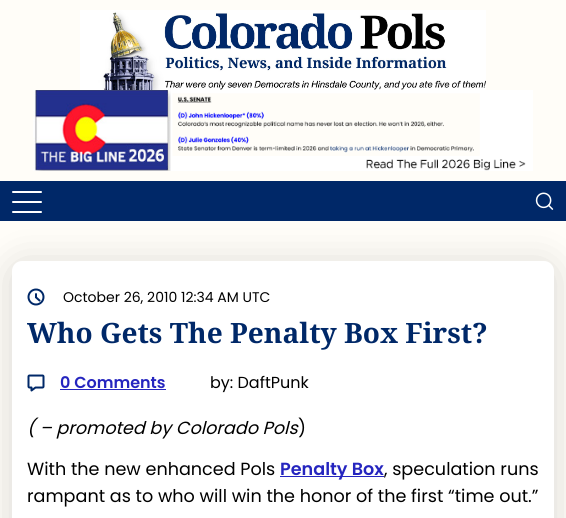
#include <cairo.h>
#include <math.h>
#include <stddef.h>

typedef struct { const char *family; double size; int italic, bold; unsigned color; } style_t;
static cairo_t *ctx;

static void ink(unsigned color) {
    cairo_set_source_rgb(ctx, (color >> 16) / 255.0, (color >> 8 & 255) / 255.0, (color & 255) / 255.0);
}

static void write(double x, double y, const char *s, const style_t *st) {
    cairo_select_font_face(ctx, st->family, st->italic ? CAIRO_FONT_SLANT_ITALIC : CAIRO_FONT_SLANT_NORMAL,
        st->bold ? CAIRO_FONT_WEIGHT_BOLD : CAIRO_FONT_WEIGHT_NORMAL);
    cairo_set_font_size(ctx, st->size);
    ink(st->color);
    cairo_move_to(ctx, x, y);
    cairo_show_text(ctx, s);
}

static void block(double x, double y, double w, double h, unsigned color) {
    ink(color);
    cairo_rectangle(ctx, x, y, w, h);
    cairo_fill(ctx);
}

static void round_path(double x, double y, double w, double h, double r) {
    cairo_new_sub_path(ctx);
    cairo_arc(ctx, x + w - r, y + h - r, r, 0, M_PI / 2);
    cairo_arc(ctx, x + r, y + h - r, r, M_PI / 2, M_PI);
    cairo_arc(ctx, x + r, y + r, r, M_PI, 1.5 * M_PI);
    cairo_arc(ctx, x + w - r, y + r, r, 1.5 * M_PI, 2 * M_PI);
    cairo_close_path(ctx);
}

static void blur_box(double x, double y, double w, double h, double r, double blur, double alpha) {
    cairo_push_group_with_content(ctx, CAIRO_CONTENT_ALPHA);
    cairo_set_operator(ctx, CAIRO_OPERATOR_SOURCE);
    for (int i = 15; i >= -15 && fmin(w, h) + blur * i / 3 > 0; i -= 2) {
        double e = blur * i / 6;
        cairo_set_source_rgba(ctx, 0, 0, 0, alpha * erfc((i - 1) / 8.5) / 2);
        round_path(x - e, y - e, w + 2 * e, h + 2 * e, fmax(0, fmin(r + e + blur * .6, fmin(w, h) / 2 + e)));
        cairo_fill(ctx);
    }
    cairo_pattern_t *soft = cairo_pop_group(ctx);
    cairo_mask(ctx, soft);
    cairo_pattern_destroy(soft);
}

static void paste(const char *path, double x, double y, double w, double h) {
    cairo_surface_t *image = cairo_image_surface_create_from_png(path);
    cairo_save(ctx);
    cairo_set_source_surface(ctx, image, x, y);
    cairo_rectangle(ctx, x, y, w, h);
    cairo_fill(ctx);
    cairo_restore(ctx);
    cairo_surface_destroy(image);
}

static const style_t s1 = {"Poppins", 14, 0, 0, 0x000000};
static const style_t s2 = {"Droid Serif", 28, 0, 1, 0x002868};
static const style_t s3 = {"Poppins SemiBold", 16, 0, 0, 0x2525bf};
static const style_t s4 = {"Poppins", 16, 0, 0, 0x000000};
static const style_t s5 = {"Poppins", 17.6, 1, 0, 0x000000};
static const style_t s6 = {"Poppins", 17.6, 0, 0, 0x000000};
static const style_t s7 = {"Poppins SemiBold", 17.6, 0, 0, 0x2525bf};

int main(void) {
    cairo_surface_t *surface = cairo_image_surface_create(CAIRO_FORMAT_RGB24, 566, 518);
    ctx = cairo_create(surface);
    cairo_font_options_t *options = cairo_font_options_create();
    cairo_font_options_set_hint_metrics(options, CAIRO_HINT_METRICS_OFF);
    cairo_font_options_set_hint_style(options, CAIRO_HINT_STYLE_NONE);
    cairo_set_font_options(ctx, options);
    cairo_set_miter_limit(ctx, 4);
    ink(0xfffdf8);
    cairo_paint(ctx);
    paste("pic1.png", 80, 10, 406, 80);
    paste("pic2.png", 33, 90, 500, 81);
    block(0, 181, 566, 40, 0x002868);
    ink(0xffffff);
    round_path(12, 201, 30, 2, 1);
    cairo_fill(ctx);
    round_path(12, 191, 30, 2, 1);
    cairo_fill(ctx);
    ink(0x000000);
    blur_box(12, 265, 542, 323, 10, 20, 0.15);
    ink(0xffffff);
    round_path(12, 211, 30, 2, 1);
    cairo_fill(ctx);
    paste("pic3.png", 535, 192, 19, 18);
    round_path(12, 261, 542, 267, 10);
    cairo_fill(ctx);
    paste("pic4.png", 27, 288, 18, 18);
    write(63, 302, "October 26, 2010 12:34 AM UTC", &s1);
    write(27, 343, "Who Gets The Penalty Box First?", &s2);
    paste("pic5.png", 27, 374, 18, 18);
    write(60, 388, "0 Comments", &s3);
    block(60, 389, 106, 1, 0x2525bf);
    write(210, 388, "by: DaftPunk", &s4);
    write(27, 434, "( – promoted by Colorado Pols", &s5);
    write(298, 434, ")", &s6);
    write(27, 475, "With the new enhanced Pols", &s6);
    block(280, 476, 104, 1, 0x2525bf);
    write(280, 475, "Penalty Box", &s7);
    write(384, 475, ", speculation runs", &s6);
    write(27, 502, "rampant as to who will win the honor of the first “time out.”", &s6);
    cairo_surface_write_to_png(surface, "screenshot.png");
    cairo_font_options_destroy(options);
    cairo_destroy(ctx);
    cairo_surface_destroy(surface);
    return 0;
}
